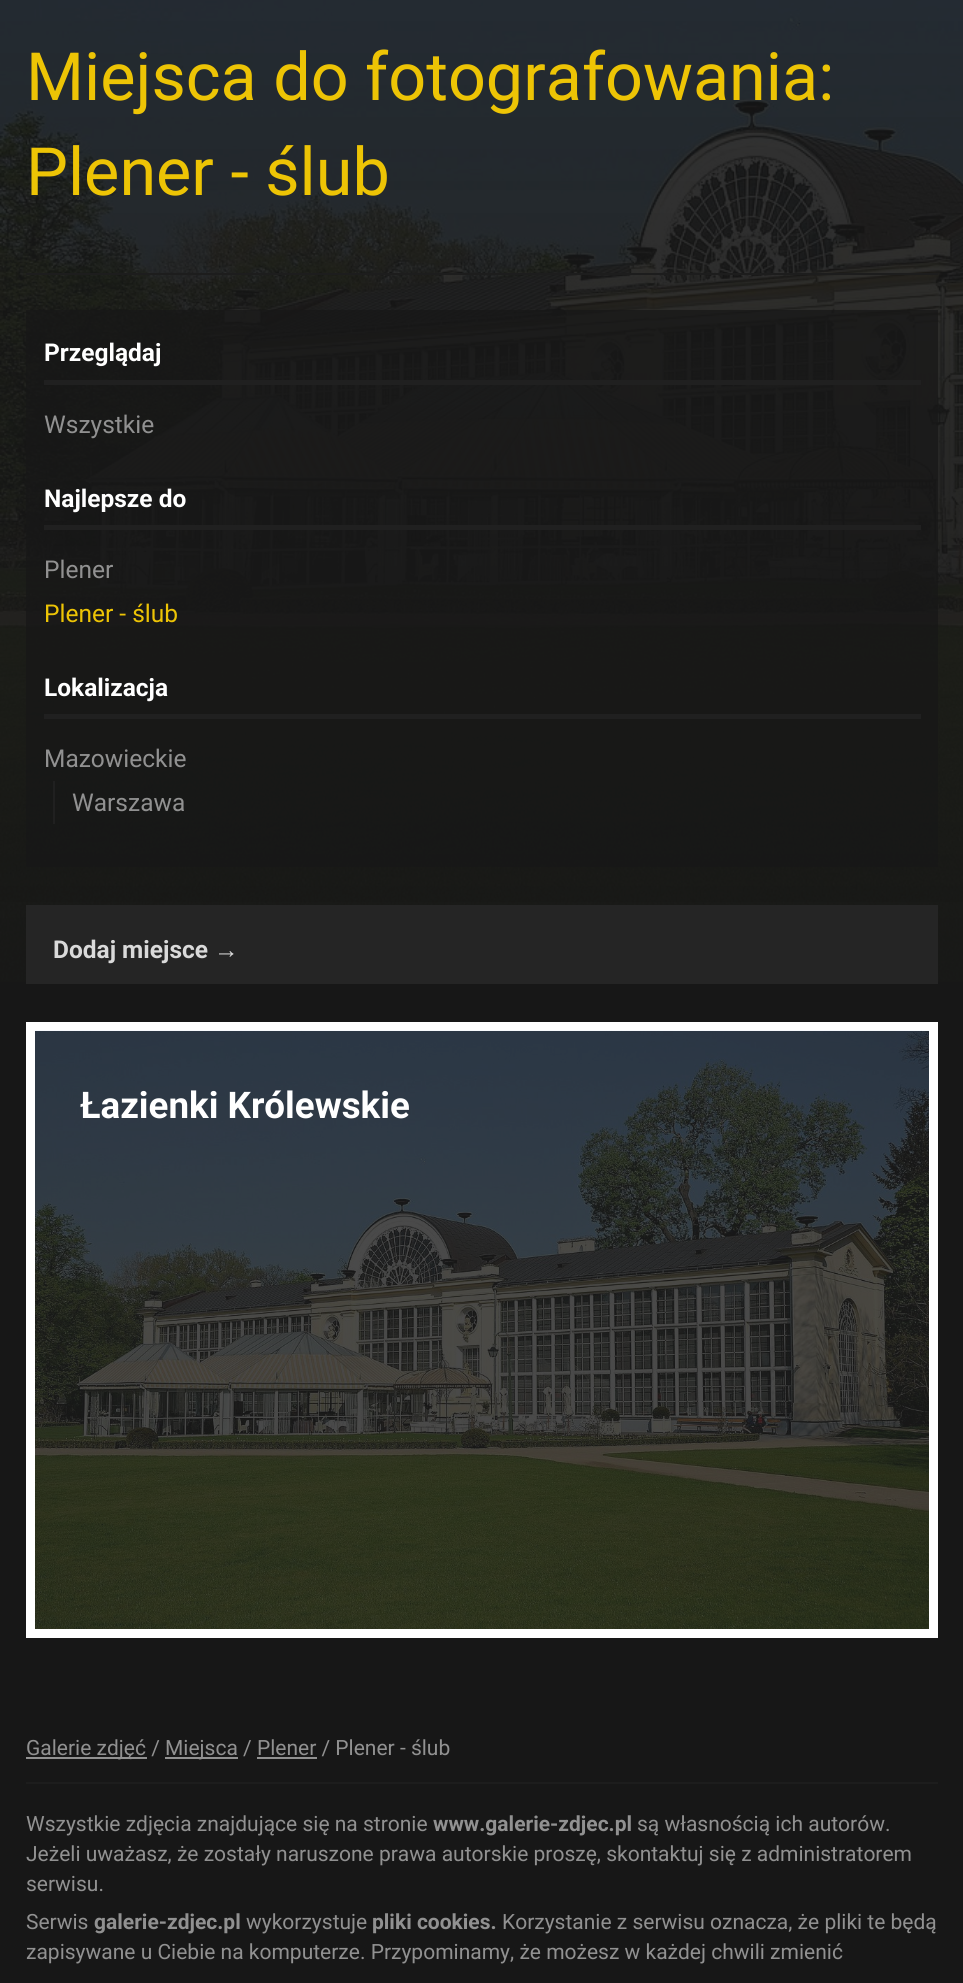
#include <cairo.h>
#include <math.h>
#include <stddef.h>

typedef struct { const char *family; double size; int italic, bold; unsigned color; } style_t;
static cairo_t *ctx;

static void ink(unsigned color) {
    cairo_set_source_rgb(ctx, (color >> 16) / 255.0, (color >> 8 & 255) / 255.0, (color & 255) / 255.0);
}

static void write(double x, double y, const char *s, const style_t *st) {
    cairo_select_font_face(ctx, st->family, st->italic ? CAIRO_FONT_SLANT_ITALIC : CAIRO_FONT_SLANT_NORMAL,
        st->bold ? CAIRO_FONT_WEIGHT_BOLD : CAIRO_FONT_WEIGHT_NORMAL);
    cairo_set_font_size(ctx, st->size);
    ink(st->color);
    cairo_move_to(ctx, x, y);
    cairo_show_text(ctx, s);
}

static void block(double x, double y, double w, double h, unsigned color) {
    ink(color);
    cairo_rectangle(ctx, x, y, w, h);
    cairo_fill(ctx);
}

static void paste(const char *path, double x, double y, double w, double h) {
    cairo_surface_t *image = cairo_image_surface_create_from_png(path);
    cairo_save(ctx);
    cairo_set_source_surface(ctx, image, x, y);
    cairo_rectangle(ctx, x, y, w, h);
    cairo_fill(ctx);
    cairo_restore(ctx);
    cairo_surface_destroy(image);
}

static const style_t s1 = {"Roboto", 66.5, 0, 0, 0xedc405};
static const style_t s2 = {"Roboto", 24.5, 0, 1, 0xffffff};
static const style_t s3 = {"Roboto", 24.5, 0, 0, 0x919191};
static const style_t s4 = {"Roboto", 24.5, 0, 0, 0xedc405};
static const style_t s5 = {"Roboto", 24.5, 0, 1, 0xdadada};
static const style_t s6 = {"Liberation Sans", 24.5, 0, 1, 0xdadada};
static const style_t s7 = {"Roboto", 36.75, 0, 1, 0xffffff};
static const style_t s8 = {"Roboto", 21, 0, 0, 0x919191};
static const style_t s9 = {"Roboto", 21, 0, 1, 0x919191};

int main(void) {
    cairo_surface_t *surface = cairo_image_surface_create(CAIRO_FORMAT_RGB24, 963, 1983);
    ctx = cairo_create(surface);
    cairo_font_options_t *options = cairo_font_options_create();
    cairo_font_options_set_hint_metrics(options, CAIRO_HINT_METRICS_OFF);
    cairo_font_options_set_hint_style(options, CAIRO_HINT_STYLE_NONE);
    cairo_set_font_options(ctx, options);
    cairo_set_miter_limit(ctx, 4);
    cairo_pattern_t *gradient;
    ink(0x171717);
    cairo_paint(ctx);
    paste("pic1.png", 0, 0, 963, 982);
    gradient = cairo_pattern_create_linear(482, -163, 482, 1062);
    cairo_pattern_add_color_stop_rgba(gradient, 0, 0.09, 0.09, 0.09, 0.85);
    cairo_pattern_add_color_stop_rgba(gradient, 1, 0.09, 0.09, 0.09, 1);
    cairo_set_source(ctx, gradient);
    cairo_pattern_destroy(gradient);
    cairo_rectangle(ctx, 0, 0, 963, 982);
    cairo_fill(ctx);
    write(26, 100, "Miejsca do fotografowania:", &s1);
    write(26, 195, "Plener - ślub", &s1);
    block(26, 273, 912, 2, 0x1d1d1d);
    cairo_set_source_rgba(ctx, 0.09, 0.09, 0.09, 0.75);
    cairo_rectangle(ctx, 26, 310, 912, 557);
    cairo_fill(ctx);
    block(44, 380, 877, 5, 0x202020);
    write(44, 361, "Przeglądaj", &s2);
    write(44, 433, "Wszystkie", &s3);
    block(44, 525, 877, 5, 0x202020);
    write(44, 507, "Najlepsze do", &s2);
    write(44, 578, "Plener", &s3);
    write(44, 622, "Plener - ślub", &s4);
    block(44, 714, 877, 5, 0x202020);
    write(44, 696, "Lokalizacja", &s2);
    write(44, 767, "Mazowieckie", &s3);
    block(53, 781, 2, 43, 0x202020);
    write(72, 811, "Warszawa", &s3);
    block(26, 905, 912, 79, 0x252525);
    write(53, 958, "Dodaj miejsce", &s5);
    write(214, 958, "→", &s6);
    ink(0x1d1d1d);
    cairo_rectangle(ctx, 30.5, 1026.5, 903, 607);
    cairo_fill_preserve(ctx);
    ink(0xffffff);
    cairo_set_line_width(ctx, 9);
    cairo_stroke(ctx);
    paste("pic2.png", 35, 1030, 894, 599);
    write(80, 1118, "Łazienki Królewskie", &s7);
    block(26, 1757, 121, 2, 0x919191);
    write(26, 1755, "Galerie zdjęć /", &s8);
    block(165, 1757, 73, 2, 0x919191);
    write(165, 1755, "Miejsca / Plener / Plener - ślub", &s8);
    block(257, 1757, 60, 2, 0x919191);
    block(26, 1782, 912, 2, 0x1d1d1d);
    write(26, 1831, "Wszystkie zdjęcia znajdujące się na stronie", &s8);
    write(433, 1831, "www.galerie-zdjec.pl", &s9);
    write(637, 1831, "są własnością ich autorów.", &s8);
    write(26, 1861, "Jeżeli uważasz, że zostały naruszone prawa autorskie proszę, skontaktuj się z administratorem", &s8);
    write(26, 1891, "serwisu.", &s8);
    write(26, 1929, "Serwis", &s8);
    write(94, 1929, "galerie-zdjec.pl", &s9);
    write(246, 1929, "wykorzystuje", &s8);
    write(372, 1929, "pliki cookies.", &s9);
    write(502, 1929, "Korzystanie z serwisu oznacza, że pliki te będą", &s8);
    write(26, 1959, "zapisywane u Ciebie na komputerze. Przypominamy, że możesz w każdej chwili zmienić", &s8);
    cairo_surface_write_to_png(surface, "screenshot.png");
    cairo_font_options_destroy(options);
    cairo_destroy(ctx);
    cairo_surface_destroy(surface);
    return 0;
}
